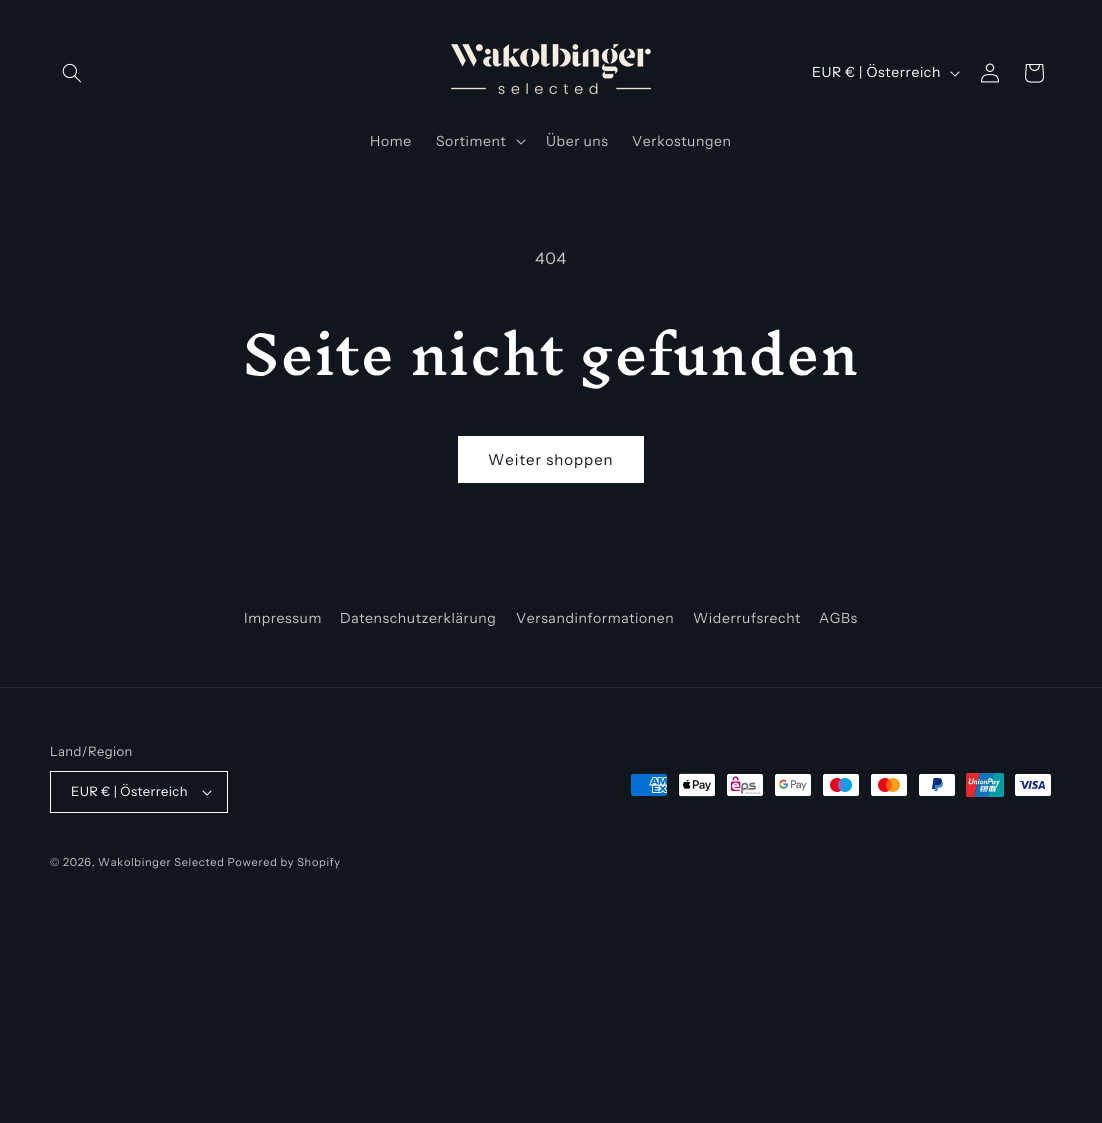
#include <cairo.h>
#include <math.h>
#include <stddef.h>

static cairo_t *ctx;

static void ink(unsigned color) {
    cairo_set_source_rgb(ctx, (color >> 16) / 255.0, (color >> 8 & 255) / 255.0, (color & 255) / 255.0);
}

static void write_spaced(double x, double y, const char *s, double letter, double word) {
    cairo_move_to(ctx, x, y);
    while (*s) {
        char ch[5] = {0};
        int n = 0;
        do ch[n++] = *s++; while ((*s & 0xC0) == 0x80);
        cairo_show_text(ctx, ch);
        cairo_rel_move_to(ctx, letter + word * (*ch == ' '), 0);
    }
}

static void block(double x, double y, double w, double h, unsigned color) {
    ink(color);
    cairo_rectangle(ctx, x, y, w, h);
    cairo_fill(ctx);
}

static void paste(const char *path, double x, double y, double w, double h) {
    cairo_surface_t *image = cairo_image_surface_create_from_png(path);
    cairo_save(ctx);
    cairo_set_source_surface(ctx, image, x, y);
    cairo_rectangle(ctx, x, y, w, h);
    cairo_fill(ctx);
    cairo_restore(ctx);
    cairo_surface_destroy(image);
}

int main(void) {
    cairo_surface_t *surface = cairo_image_surface_create(CAIRO_FORMAT_RGB24, 1102, 1123);
    ctx = cairo_create(surface);
    cairo_font_options_t *options = cairo_font_options_create();
    cairo_font_options_set_hint_metrics(options, CAIRO_HINT_METRICS_OFF);
    cairo_font_options_set_hint_style(options, CAIRO_HINT_STYLE_NONE);
    cairo_set_font_options(ctx, options);
    cairo_set_miter_limit(ctx, 4);
    ink(0x11151c);
    cairo_paint(ctx);
    paste("pic1.png", 62, 63, 19, 20);
    paste("pic2.png", 451, 44, 200, 51);
    cairo_select_font_face(ctx, "Instrument Sans", CAIRO_FONT_SLANT_NORMAL, CAIRO_FONT_WEIGHT_NORMAL);
    cairo_set_font_size(ctx, 14);
    ink(0xffffff);
    write_spaced(812, 77, "EUR € | Österreich", 0.6, 0);
    paste("pic3.png", 950, 71, 10, 6);
    paste("pic4.png", 981, 63, 18, 20);
    paste("pic5.png", 1025, 64, 20, 19);
    ink(0xc4c5c6);
    write_spaced(370, 146, "Home", 0.6, 0);
    write_spaced(436, 146, "Sortiment", 0.6, 0);
    paste("pic6.png", 516, 139, 10, 6);
    write_spaced(546, 146, "Über uns", 0.6, 0);
    write_spaced(632, 146, "Verkostungen", 0.6, 0);
    cairo_set_font_size(ctx, 16);
    write_spaced(535, 264, "404", 0.6, 0);
    cairo_select_font_face(ctx, "Inknut Antiqua Medium", CAIRO_FONT_SLANT_NORMAL, CAIRO_FONT_WEIGHT_NORMAL);
    cairo_set_font_size(ctx, 52);
    ink(0xffffff);
    write_spaced(243, 375, "Seite nicht gefunden", 0.75, 0);
    block(458, 436, 186, 47, 0xffffff);
    cairo_select_font_face(ctx, "Instrument Sans", CAIRO_FONT_SLANT_NORMAL, CAIRO_FONT_WEIGHT_NORMAL);
    cairo_set_font_size(ctx, 15);
    ink(0x11151c);
    write_spaced(488, 465, "Weiter shoppen", 1, 0);
    cairo_set_font_size(ctx, 14);
    ink(0xc4c5c6);
    write_spaced(244, 623, "Impressum", 0.6, 0);
    write_spaced(340, 623, "Datenschutzerklärung", 0.6, 0);
    write_spaced(516, 623, "Versandinformationen", 0.6, 0);
    write_spaced(693, 623, "Widerrufsrecht", 0.6, 0);
    write_spaced(819, 623, "AGBs", 0.6, 0);
    block(0, 687, 1102, 1, 0x24282e);
    cairo_set_font_size(ctx, 13);
    ink(0xc4c5c6);
    write_spaced(50, 756, "Land/Region", 0.4, 0);
    paste("pic3.png", 202, 790, 10, 6);
    cairo_rectangle(ctx, 50.5, 771.5, 177, 41);
    ink(0xffffff);
    cairo_set_line_width(ctx, 1);
    cairo_stroke(ctx);
    write_spaced(71, 796, "EUR € | Österreich", 0.4, 0);
    paste("pic7.png", 631, 774, 36, 22);
    paste("pic8.png", 678, 773, 38, 24);
    paste("pic9.png", 727, 774, 36, 22);
    paste("pic10.png", 775, 774, 36, 22);
    paste("pic11.png", 823, 774, 36, 22);
    paste("pic12.png", 871, 774, 36, 22);
    paste("pic13.png", 919, 774, 36, 22);
    paste("pic14.png", 966, 773, 38, 24);
    paste("pic15.png", 1015, 774, 36, 22);
    cairo_set_font_size(ctx, 11);
    ink(0xc4c5c6);
    write_spaced(50, 866, "© 2026, Wakolbinger Selected Powered by Shopify", 0.7, 0);
    cairo_surface_write_to_png(surface, "screenshot.png");
    cairo_font_options_destroy(options);
    cairo_destroy(ctx);
    cairo_surface_destroy(surface);
    return 0;
}
